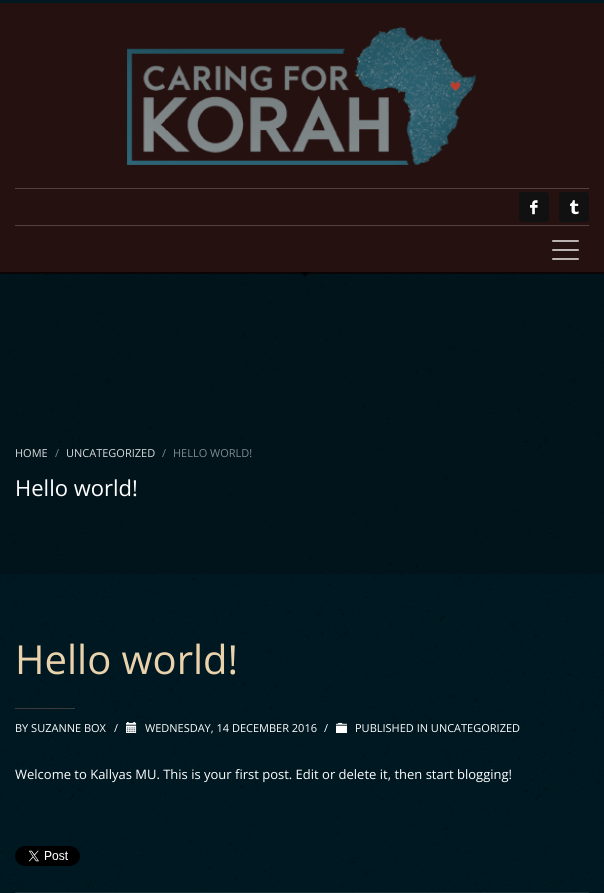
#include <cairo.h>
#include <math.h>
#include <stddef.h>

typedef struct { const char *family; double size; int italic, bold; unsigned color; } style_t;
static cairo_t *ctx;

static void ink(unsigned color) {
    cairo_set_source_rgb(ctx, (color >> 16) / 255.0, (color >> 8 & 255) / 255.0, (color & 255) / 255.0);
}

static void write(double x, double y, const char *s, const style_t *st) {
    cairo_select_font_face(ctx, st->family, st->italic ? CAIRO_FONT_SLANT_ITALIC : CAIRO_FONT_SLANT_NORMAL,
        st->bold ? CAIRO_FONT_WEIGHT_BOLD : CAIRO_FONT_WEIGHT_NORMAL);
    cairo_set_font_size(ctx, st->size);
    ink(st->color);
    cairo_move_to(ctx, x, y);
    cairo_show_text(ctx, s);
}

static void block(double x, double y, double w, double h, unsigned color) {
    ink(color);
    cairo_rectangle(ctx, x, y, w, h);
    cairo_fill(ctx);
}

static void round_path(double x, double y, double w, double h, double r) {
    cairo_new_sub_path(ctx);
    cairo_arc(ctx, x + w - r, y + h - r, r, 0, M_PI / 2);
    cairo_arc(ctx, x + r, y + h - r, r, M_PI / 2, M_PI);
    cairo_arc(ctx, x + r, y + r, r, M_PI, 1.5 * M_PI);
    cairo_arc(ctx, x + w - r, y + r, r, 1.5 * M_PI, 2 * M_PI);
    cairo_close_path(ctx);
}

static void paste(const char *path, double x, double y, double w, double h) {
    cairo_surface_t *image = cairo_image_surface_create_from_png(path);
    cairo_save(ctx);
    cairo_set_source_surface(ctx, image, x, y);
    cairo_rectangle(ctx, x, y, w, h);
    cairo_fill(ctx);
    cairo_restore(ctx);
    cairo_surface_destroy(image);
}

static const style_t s1 = {"Open Sans", 11, 0, 0, 0xd9dcdd};
static const style_t s2 = {"Open Sans", 11, 0, 0, 0x818a8e};
static const style_t s3 = {"Open Sans", 22, 0, 0, 0xffffff};
static const style_t s4 = {"Open Sans", 40, 0, 0, 0xead2ac};
static const style_t s5 = {"Open Sans", 11, 0, 0, 0xffffff};
static const style_t s6 = {"Open Sans", 13, 0, 0, 0xffffff};

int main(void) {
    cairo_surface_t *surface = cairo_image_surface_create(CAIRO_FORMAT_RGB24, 604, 893);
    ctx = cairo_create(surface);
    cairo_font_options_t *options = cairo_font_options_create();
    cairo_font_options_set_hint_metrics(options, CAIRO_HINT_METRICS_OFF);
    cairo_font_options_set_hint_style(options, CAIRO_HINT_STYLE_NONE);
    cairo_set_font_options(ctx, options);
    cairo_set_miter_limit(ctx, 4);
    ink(0x001821);
    cairo_paint(ctx);
    paste("pic1.png", 0, 274, 604, 619);
    block(0, 3, 604, 269, 0x25110f);
    block(0, 272, 604, 2, 0x0b0505);
    paste("pic2.png", 127, 27, 349, 138);
    block(15, 188, 574, 1, 0x51413f);
    ink(0x111111);
    round_path(519, 192, 30, 30, 3);
    cairo_fill(ctx);
    paste("pic3.png", 530, 200, 8, 15);
    round_path(559, 192, 30, 30, 3);
    cairo_fill(ctx);
    paste("pic4.png", 570, 200, 9, 15);
    block(15, 225, 574, 1, 0x51413f);
    ink(0xb9b3b2);
    round_path(552, 240, 27, 2, 1);
    cairo_fill(ctx);
    round_path(552, 249, 27, 2, 1);
    cairo_fill(ctx);
    round_path(552, 258, 27, 2, 1);
    cairo_fill(ctx);
    cairo_set_source_rgba(ctx, 0.039, 0.039, 0.039, 0.2);
    cairo_rectangle(ctx, 0, 274, 604, 300);
    cairo_fill(ctx);
    cairo_set_source_rgba(ctx, 0, 0, 0, 0.7);
    cairo_new_path(ctx);
    cairo_move_to(ctx, 300, 272);
    cairo_line_to(ctx, 310, 272);
    cairo_line_to(ctx, 305, 277);
    cairo_close_path(ctx);
    cairo_fill(ctx);
    write(15, 457, "HOME", &s1);
    write(55, 457, "/", &s2);
    write(66, 457, "UNCATEGORIZED", &s1);
    write(162, 457, "/", &s2);
    write(173, 457, "HELLO WORLD!", &s2);
    write(15, 496, "Hello world!", &s3);
    write(15, 674, "Hello world!", &s4);
    block(15, 708, 60, 1, 0x3b3b3b);
    write(15, 732, "BY SUZANNE BOX", &s5);
    write(114, 732, "/", &s5);
    paste("pic5.png", 126, 722, 11, 11);
    write(145, 732, "WEDNESDAY, 14 DECEMBER 2016", &s5);
    write(324, 732, "/", &s5);
    paste("pic6.png", 336, 722, 11, 11);
    write(355, 732, "PUBLISHED IN UNCATEGORIZED", &s5);
    write(15, 779, "Welcome to Kallyas MU. This is your first post. Edit or delete it, then start blogging!", &s6);
    paste("pic7.png", 15, 846, 65, 20);
    cairo_set_source_rgba(ctx, 0.914, 0.914, 0.914, 0.1);
    cairo_rectangle(ctx, 15, 892, 574, 1);
    cairo_fill(ctx);
    cairo_surface_write_to_png(surface, "screenshot.png");
    cairo_font_options_destroy(options);
    cairo_destroy(ctx);
    cairo_surface_destroy(surface);
    return 0;
}
